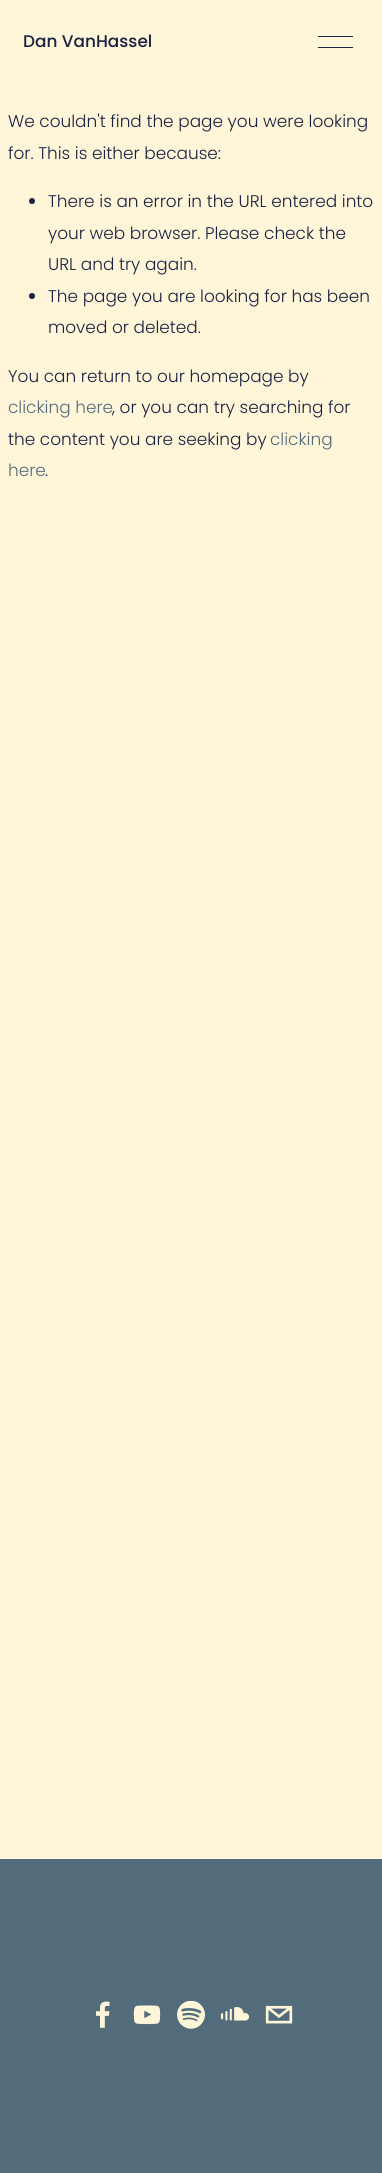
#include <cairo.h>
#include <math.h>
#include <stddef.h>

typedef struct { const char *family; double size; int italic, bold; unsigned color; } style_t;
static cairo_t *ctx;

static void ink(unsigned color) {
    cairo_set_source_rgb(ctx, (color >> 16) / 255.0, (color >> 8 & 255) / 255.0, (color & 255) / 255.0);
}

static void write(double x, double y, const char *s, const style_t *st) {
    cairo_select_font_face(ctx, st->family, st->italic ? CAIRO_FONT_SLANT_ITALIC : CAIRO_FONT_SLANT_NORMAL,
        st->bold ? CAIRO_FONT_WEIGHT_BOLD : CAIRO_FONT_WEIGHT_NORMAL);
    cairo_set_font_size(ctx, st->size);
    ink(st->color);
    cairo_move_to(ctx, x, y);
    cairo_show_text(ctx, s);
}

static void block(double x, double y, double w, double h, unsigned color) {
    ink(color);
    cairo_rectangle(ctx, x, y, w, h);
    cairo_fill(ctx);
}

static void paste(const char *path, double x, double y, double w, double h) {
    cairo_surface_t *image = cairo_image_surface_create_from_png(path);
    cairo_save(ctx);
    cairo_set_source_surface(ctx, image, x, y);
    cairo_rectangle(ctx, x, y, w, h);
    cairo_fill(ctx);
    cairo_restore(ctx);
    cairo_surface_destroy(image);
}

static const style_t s1 = {"Poppins Medium", 16.9, 0, 0, 0x182241};
static const style_t s2 = {"Poppins Light", 16.9, 0, 0, 0x182241};
static const style_t s3 = {"Poppins Light", 16.9, 0, 0, 0x536c7c};

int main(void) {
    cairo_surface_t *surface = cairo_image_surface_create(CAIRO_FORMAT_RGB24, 382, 2173);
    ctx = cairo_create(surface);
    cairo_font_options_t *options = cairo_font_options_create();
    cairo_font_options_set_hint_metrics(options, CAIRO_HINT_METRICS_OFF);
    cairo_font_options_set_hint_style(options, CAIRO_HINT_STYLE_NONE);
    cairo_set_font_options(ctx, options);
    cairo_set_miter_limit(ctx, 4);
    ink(0xfff5d9);
    cairo_paint(ctx);
    write(23, 47, "Dan VanHassel", &s1);
    block(318, 36, 35, 1, 0x182241);
    block(318, 47, 35, 1, 0x182241);
    write(8, 127, "We couldn't find the page you were looking", &s2);
    write(8, 159, "for. This is either because:", &s2);
    cairo_new_path(ctx);
    cairo_arc(ctx, 32, 201, 3, 0, 2 * M_PI);
    cairo_fill(ctx);
    write(48, 207, "There is an error in the URL entered into", &s2);
    write(48, 239, "your web browser. Please check the", &s2);
    write(48, 270, "URL and try again.", &s2);
    cairo_new_path(ctx);
    cairo_arc(ctx, 32, 296, 3, 0, 2 * M_PI);
    cairo_fill(ctx);
    write(48, 302, "The page you are looking for has been", &s2);
    write(48, 333, "moved or deleted.", &s2);
    write(8, 382, "You can return to our homepage by", &s2);
    write(8, 413, "clicking here", &s3);
    write(112, 413, ", or you can try searching for", &s2);
    write(8, 445, "the content you are seeking by", &s2);
    write(270, 445, "clicking", &s3);
    write(8, 476, "here", &s3);
    write(45, 476, ".", &s2);
    block(0, 1859, 382, 314, 0x536c7c);
    paste("pic1.png", 96, 2001, 14, 27);
    paste("pic2.png", 133, 2005, 28, 20);
    paste("pic3.png", 177, 2001, 28, 28);
    paste("pic4.png", 221, 2007, 28, 14);
    paste("pic5.png", 265, 2005, 28, 19);
    cairo_surface_write_to_png(surface, "screenshot.png");
    cairo_font_options_destroy(options);
    cairo_destroy(ctx);
    cairo_surface_destroy(surface);
    return 0;
}
